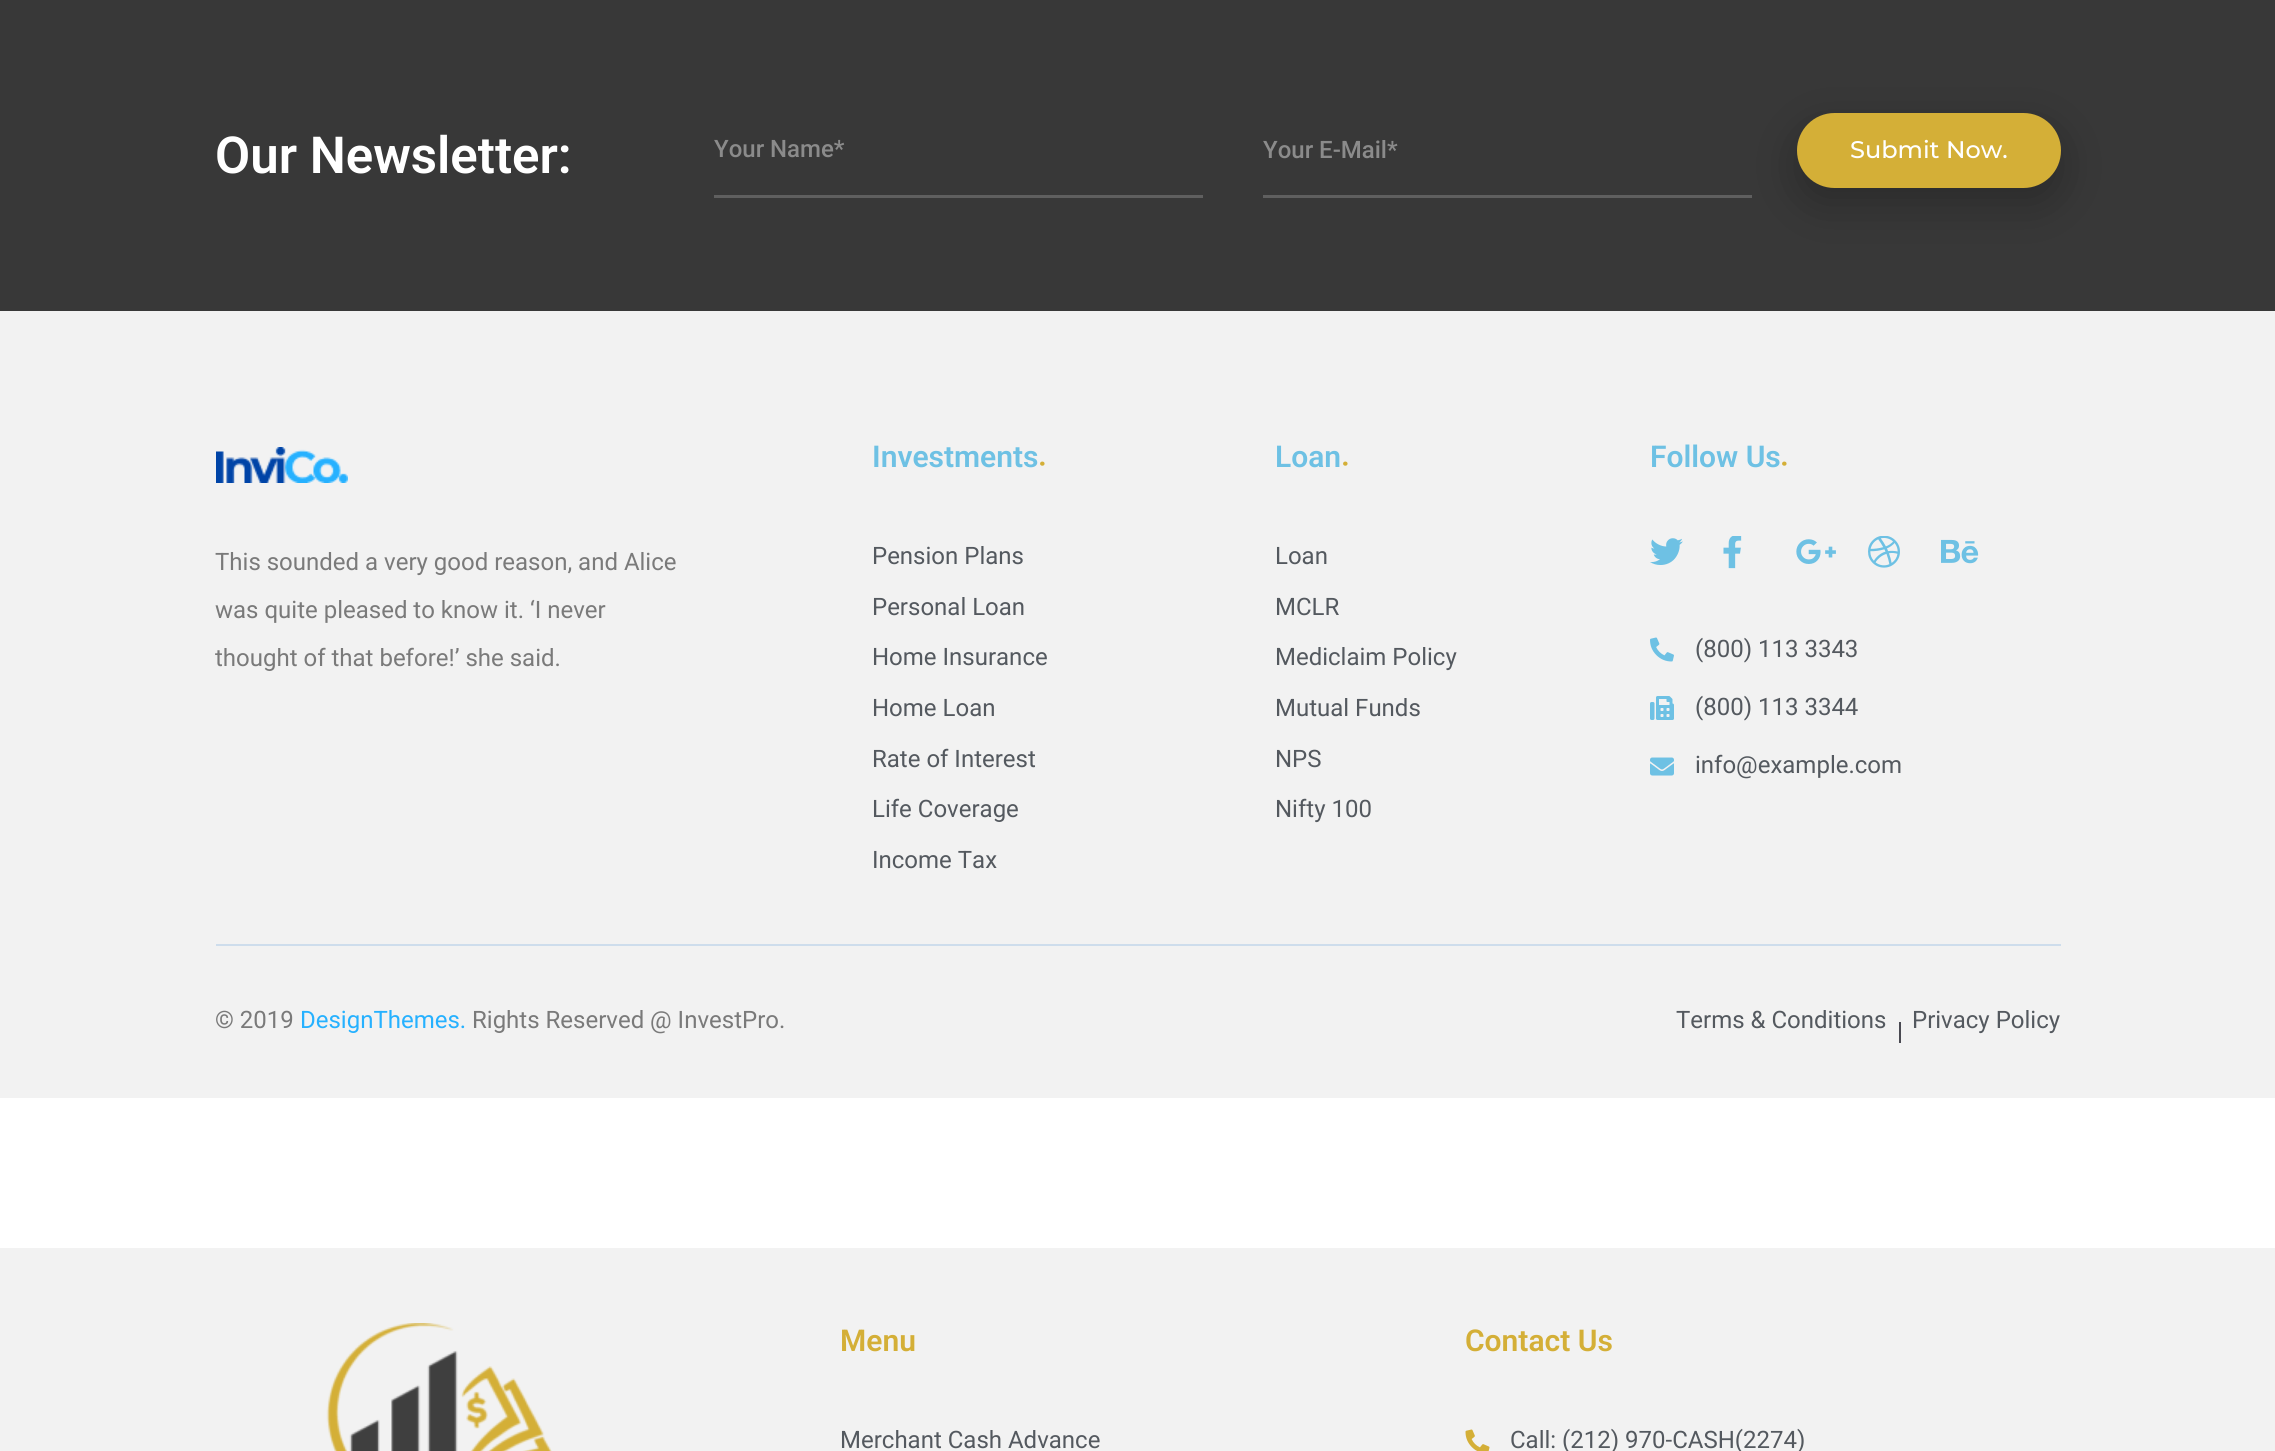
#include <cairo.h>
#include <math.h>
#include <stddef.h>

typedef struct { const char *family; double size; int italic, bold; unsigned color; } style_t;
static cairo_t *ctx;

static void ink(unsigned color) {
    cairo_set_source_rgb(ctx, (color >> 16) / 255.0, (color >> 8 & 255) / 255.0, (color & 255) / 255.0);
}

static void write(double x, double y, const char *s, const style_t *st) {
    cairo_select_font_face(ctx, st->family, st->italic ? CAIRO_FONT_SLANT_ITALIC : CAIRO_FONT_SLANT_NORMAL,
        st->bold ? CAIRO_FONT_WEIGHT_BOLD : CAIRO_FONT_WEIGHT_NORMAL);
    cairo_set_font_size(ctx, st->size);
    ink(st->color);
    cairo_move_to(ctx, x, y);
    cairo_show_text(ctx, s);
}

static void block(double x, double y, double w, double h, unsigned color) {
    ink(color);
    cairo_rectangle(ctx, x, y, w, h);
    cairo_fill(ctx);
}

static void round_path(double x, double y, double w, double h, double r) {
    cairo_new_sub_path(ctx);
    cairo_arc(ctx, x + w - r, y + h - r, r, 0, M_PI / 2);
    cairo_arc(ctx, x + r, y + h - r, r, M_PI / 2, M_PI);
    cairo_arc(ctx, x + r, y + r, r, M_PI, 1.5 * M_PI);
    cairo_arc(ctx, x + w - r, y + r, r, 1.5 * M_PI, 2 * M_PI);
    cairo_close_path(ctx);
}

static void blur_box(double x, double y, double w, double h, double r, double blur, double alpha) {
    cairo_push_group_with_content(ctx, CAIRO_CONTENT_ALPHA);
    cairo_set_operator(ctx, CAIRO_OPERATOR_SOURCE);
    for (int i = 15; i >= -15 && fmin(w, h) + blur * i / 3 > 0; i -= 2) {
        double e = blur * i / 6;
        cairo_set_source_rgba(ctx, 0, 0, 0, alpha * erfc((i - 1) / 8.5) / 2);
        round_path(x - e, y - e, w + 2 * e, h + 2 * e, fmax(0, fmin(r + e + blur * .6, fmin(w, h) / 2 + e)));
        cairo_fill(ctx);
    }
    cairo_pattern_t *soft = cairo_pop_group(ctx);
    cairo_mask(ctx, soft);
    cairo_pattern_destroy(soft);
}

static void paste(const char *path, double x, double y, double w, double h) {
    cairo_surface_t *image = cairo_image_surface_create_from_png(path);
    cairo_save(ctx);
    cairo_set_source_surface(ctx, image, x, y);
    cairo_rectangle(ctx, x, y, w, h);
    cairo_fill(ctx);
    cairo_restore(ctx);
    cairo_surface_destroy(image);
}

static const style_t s1 = {"Roboto SemiBold", 51, 0, 0, 0xffffff};
static const style_t s2 = {"Roboto Medium", 24, 0, 0, 0x8b8b8b};
static const style_t s3 = {"Montserrat Medium", 24, 0, 0, 0xffffff};
static const style_t s4 = {"Roboto", 24, 0, 0, 0x7a7a7a};
static const style_t s5 = {"Roboto SemiBold", 30, 0, 0, 0x6ec1e4};
static const style_t s6 = {"Roboto SemiBold", 30, 0, 0, 0xd4af37};
static const style_t s7 = {"Roboto", 24, 0, 0, 0x54595f};
static const style_t s8 = {"Roboto", 24, 0, 0, 0x26b1ff};

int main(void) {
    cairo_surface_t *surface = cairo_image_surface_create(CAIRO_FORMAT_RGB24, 2275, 1451);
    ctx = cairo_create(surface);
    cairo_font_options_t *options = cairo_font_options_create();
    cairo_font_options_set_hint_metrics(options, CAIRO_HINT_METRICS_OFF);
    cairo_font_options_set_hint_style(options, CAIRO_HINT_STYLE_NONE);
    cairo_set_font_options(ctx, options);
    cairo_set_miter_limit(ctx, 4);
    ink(0xffffff);
    cairo_paint(ctx);
    block(0, 0, 2275, 311, 0x383838);
    write(215, 173, "Our Newsletter:", &s1);
    block(714, 195, 489, 3, 0x5f5f5f);
    write(714, 157, "Your Name*", &s2);
    block(1263, 195, 489, 3, 0x5f5f5f);
    write(1263, 158, "Your E-Mail*", &s2);
    ink(0x000000);
    blur_box(1797, 128, 264, 75, 37.5, 22.5, 0.25);
    ink(0xd4af37);
    round_path(1797, 113, 264, 75, 37.5);
    cairo_fill(ctx);
    write(1850, 158, "Submit Now.", &s3);
    block(0, 311, 2275, 787, 0xf2f2f2);
    paste("pic1.png", 216, 447, 132, 36);
    write(215, 570, "This sounded a very good reason, and Alice", &s4);
    write(215, 618, "was quite pleased to know it. ‘I never", &s4);
    write(215, 666, "thought of that before!’ she said.", &s4);
    write(872, 467, "Investments", &s5);
    write(1038, 474, "·", &s6);
    write(872, 564, "Pension Plans", &s7);
    write(872, 615, "Personal Loan", &s7);
    write(872, 665, "Home Insurance", &s7);
    write(872, 716, "Home Loan", &s7);
    write(872, 767, "Rate of Interest", &s7);
    write(872, 817, "Life Coverage", &s7);
    write(872, 868, "Income Tax", &s7);
    write(1275, 467, "Loan", &s5);
    write(1341, 474, "·", &s6);
    write(1275, 564, "Loan", &s7);
    write(1275, 615, "MCLR", &s7);
    write(1275, 665, "Mediclaim Policy", &s7);
    write(1275, 716, "Mutual Funds", &s7);
    write(1275, 767, "NPS", &s7);
    write(1275, 817, "Nifty 100", &s7);
    write(1650, 467, "Follow Us", &s5);
    write(1780, 474, "·", &s6);
    paste("pic2.png", 1650, 538, 33, 27);
    paste("pic3.png", 1723, 536, 19, 33);
    paste("pic4.png", 1796, 539, 40, 25);
    paste("pic5.png", 1868, 536, 32, 32);
    paste("pic6.png", 1941, 539, 38, 25);
    paste("pic7.png", 1650, 637, 24, 25);
    write(1695, 657, "(800) 113 3343", &s7);
    paste("pic8.png", 1650, 696, 24, 24);
    write(1695, 715, "(800) 113 3344", &s7);
    paste("pic9.png", 1650, 757, 24, 19);
    write(1695, 773, "info@example.com", &s7);
    block(216, 944, 1845, 2, 0xceddec);
    write(215, 1028, "© 2019", &s4);
    write(300, 1028, "DesignThemes.", &s8);
    write(472, 1028, "Rights Reserved @ InvestPro.", &s4);
    write(1676, 1028, "Terms & Conditions", &s7);
    block(1899, 1022, 2, 21, 0x4a4a52);
    write(1912, 1028, "Privacy Policy", &s7);
    block(0, 1248, 2275, 203, 0xf2f2f2);
    paste("pic10.png", 326, 1323, 226, 128);
    write(840, 1351, "Menu", &s6);
    write(840, 1448, "Merchant Cash Advance", &s7);
    write(1465, 1351, "Contact Us", &s6);
    paste("pic11.png", 1465, 1429, 25, 22);
    write(1510, 1448, "Call: (212) 970-CASH(2274)", &s7);
    cairo_surface_write_to_png(surface, "screenshot.png");
    cairo_font_options_destroy(options);
    cairo_destroy(ctx);
    cairo_surface_destroy(surface);
    return 0;
}
